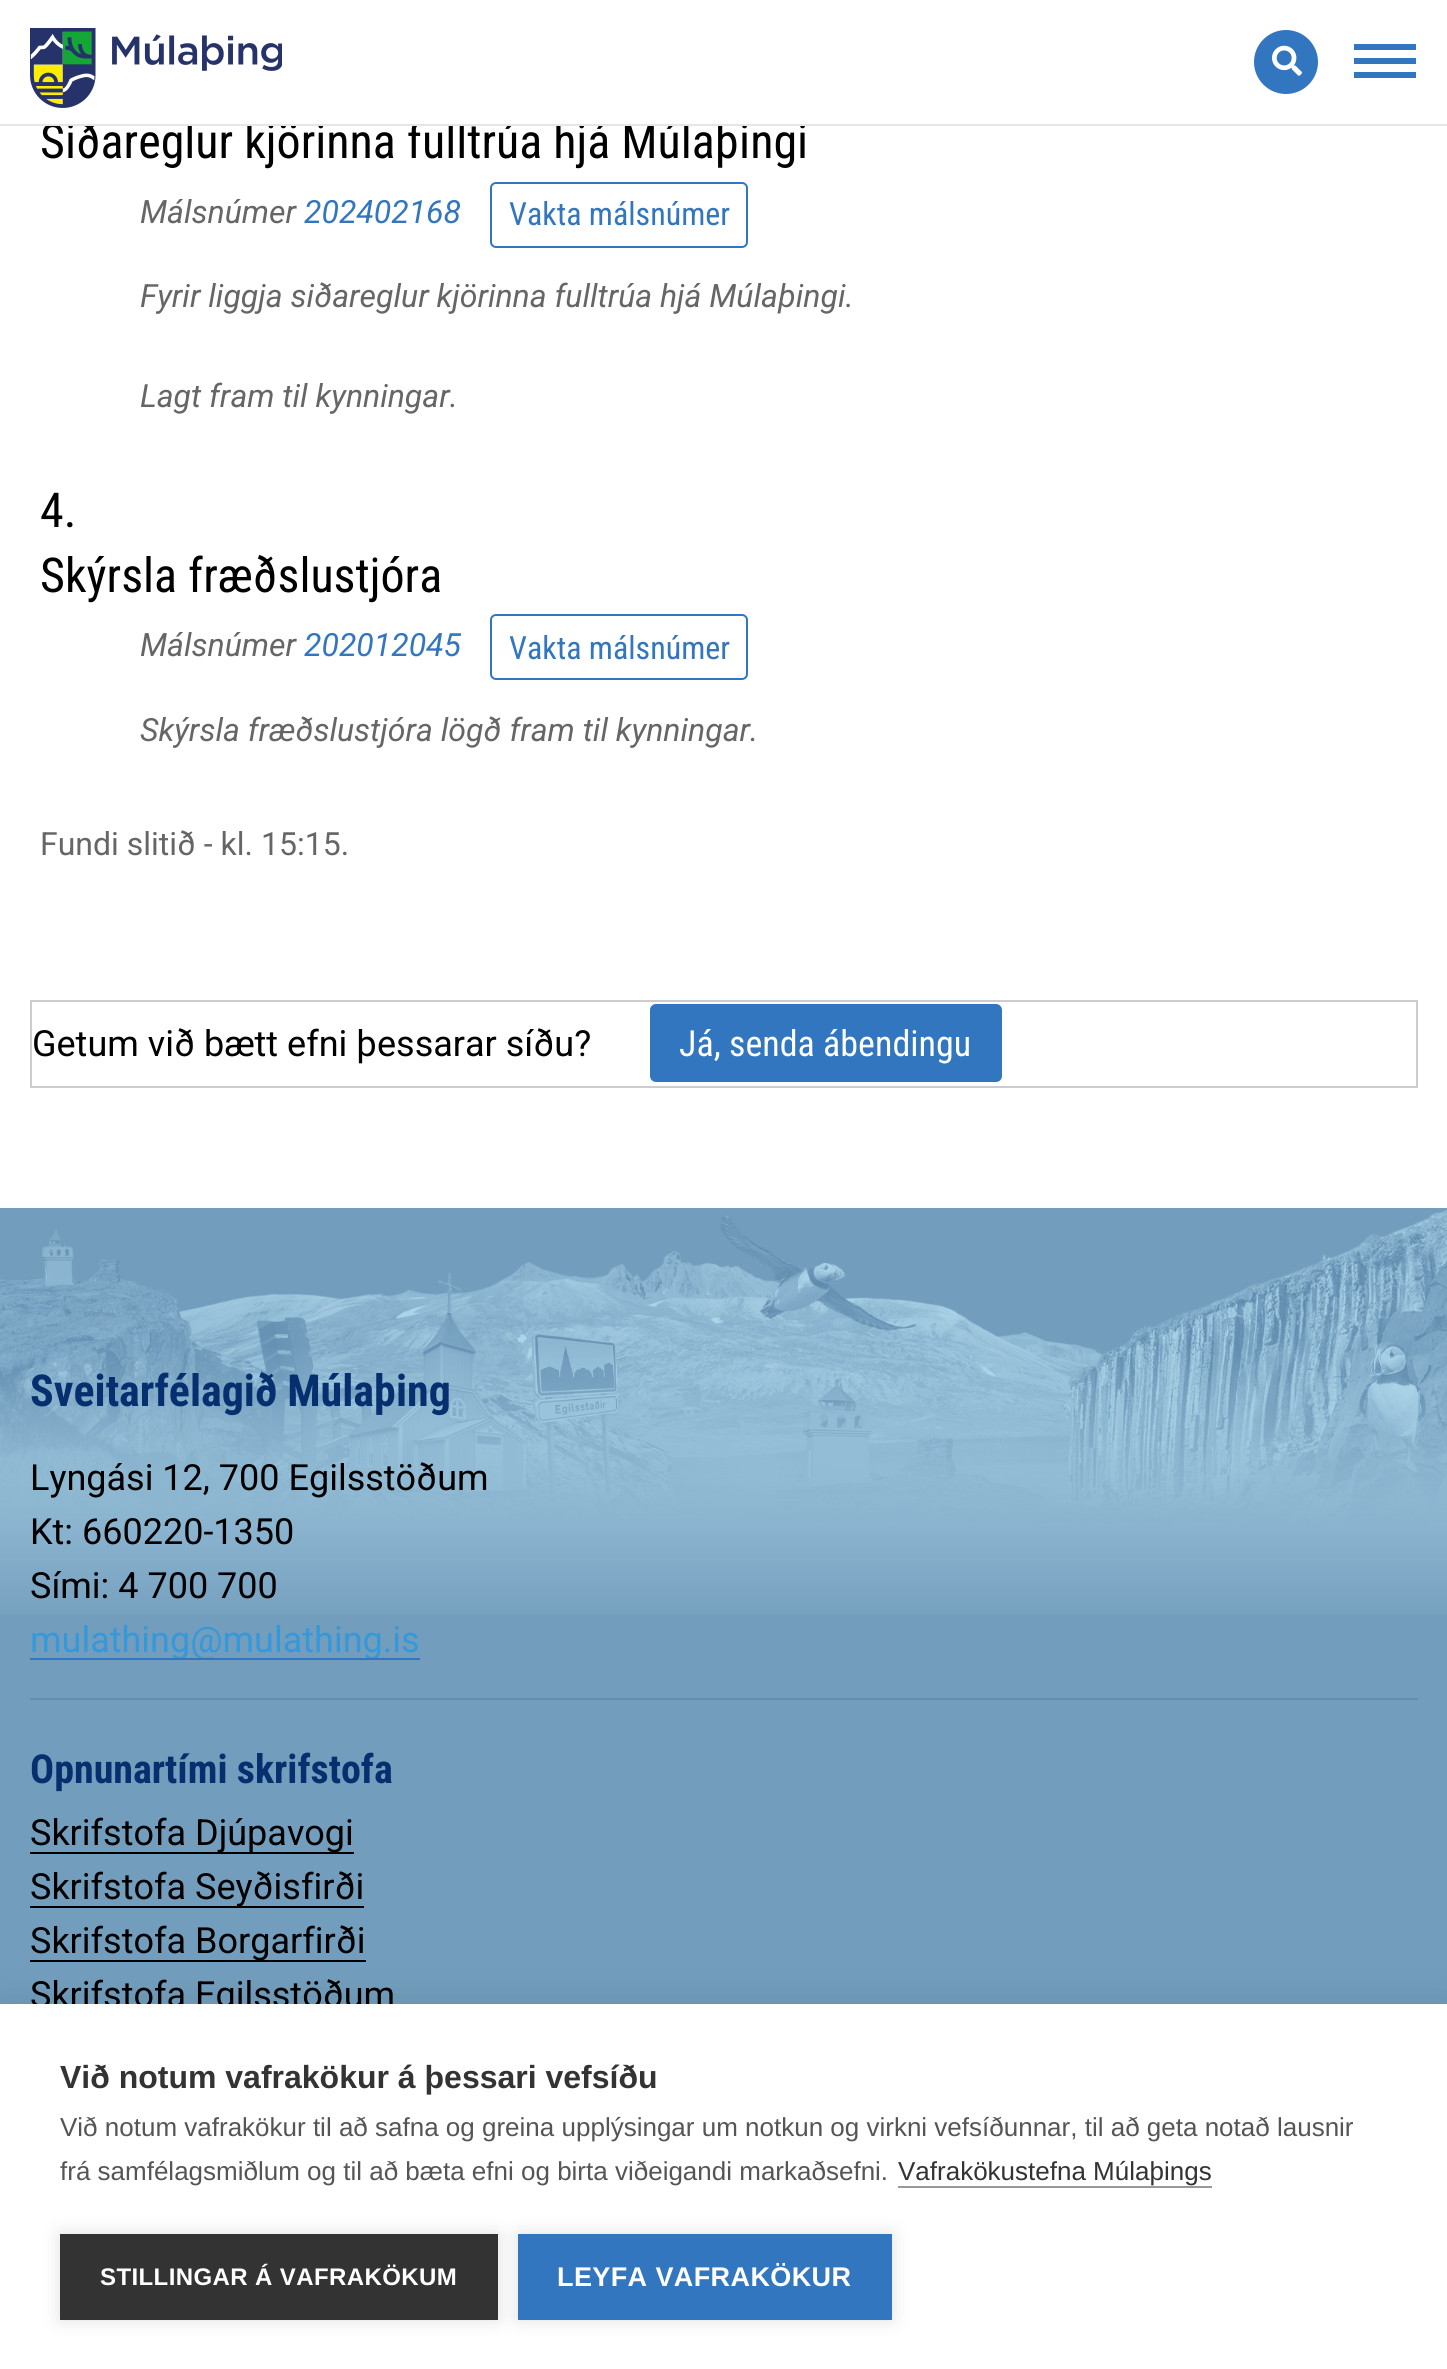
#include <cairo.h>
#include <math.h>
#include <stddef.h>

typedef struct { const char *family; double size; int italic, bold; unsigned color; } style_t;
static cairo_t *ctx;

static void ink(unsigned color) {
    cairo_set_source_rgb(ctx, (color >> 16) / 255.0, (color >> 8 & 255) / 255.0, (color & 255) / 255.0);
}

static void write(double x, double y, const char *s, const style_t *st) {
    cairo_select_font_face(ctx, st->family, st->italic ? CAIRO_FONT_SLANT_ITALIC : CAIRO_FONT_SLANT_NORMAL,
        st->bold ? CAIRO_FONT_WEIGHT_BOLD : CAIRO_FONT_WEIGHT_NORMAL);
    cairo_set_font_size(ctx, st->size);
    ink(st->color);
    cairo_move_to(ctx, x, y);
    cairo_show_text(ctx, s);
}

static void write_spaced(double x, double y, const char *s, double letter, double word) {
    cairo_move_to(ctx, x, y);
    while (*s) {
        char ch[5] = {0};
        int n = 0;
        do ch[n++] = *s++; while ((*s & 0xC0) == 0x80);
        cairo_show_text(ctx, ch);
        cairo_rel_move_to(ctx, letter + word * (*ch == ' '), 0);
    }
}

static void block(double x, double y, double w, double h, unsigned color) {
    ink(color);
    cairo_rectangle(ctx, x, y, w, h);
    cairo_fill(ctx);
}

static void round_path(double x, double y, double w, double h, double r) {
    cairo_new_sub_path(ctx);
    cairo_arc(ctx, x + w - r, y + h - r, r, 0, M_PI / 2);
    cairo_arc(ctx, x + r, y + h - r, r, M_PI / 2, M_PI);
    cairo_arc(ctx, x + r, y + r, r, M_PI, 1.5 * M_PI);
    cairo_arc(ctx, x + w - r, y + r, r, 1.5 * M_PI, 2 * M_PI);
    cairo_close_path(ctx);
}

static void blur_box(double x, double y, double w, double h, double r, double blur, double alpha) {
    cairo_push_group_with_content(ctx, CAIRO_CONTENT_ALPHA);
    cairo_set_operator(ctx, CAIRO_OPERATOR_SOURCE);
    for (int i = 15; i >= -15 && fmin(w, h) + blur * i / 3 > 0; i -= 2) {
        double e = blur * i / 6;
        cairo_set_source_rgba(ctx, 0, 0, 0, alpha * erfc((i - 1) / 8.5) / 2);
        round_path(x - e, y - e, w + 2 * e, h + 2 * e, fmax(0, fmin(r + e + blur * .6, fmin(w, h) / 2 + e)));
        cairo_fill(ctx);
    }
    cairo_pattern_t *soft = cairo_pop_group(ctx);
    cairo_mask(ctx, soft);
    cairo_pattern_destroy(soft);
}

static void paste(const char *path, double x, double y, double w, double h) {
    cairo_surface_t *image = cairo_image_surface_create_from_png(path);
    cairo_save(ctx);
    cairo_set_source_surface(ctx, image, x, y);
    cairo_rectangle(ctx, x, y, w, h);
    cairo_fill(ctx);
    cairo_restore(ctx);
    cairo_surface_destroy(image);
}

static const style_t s1 = {"Roboto Condensed", 48, 0, 0, 0x000000};
static const style_t s2 = {"Roboto", 32, 1, 0, 0x666666};
static const style_t s3 = {"Roboto", 32, 1, 0, 0x3276bf};
static const style_t s4 = {"Roboto Condensed", 32, 0, 0, 0x3276bf};
static const style_t s5 = {"Roboto", 32, 0, 0, 0x666666};
static const style_t s6 = {"Roboto", 36, 0, 0, 0x000000};
static const style_t s7 = {"Roboto Condensed", 36, 0, 0, 0xffffff};
static const style_t s8 = {"Roboto Condensed", 44, 0, 1, 0x062f6f};
static const style_t s9 = {"Roboto", 36, 0, 0, 0x3598db};
static const style_t s10 = {"Roboto Condensed", 40, 0, 1, 0x062f6f};
static const style_t s11 = {"Liberation Sans", 32, 0, 1, 0x333333};
static const style_t s12 = {"Liberation Sans", 26, 0, 0, 0x555555};
static const style_t s13 = {"Liberation Sans", 26, 0, 0, 0x333333};

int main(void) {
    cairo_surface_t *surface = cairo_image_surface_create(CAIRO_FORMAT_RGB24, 1447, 2369);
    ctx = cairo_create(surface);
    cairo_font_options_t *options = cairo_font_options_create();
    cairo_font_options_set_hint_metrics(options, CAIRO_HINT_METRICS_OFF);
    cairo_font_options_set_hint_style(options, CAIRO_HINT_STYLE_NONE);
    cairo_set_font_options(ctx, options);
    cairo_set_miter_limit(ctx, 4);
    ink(0xffffff);
    cairo_paint(ctx);
    block(1354, 44, 62, 6, 0x3276bf);
    block(1354, 58, 62, 6, 0x3276bf);
    block(1354, 72, 62, 6, 0x3276bf);
    write(40, 158, "Siðareglur kjörinna fulltrúa hjá Múlaþingi", &s1);
    block(49, 121, 756, 3, 0xffffff);
    block(0, 124, 1447, 2, 0xe6e6e6);
    paste("pic1.png", 30, 28, 252, 80);
    ink(0x3276bf);
    cairo_arc(ctx, 1286, 62, 32, 0, 2 * M_PI);
    cairo_fill(ctx);
    paste("pic2.png", 1272, 45, 30, 31);
    write(140, 223, "Málsnúmer", &s2);
    write(304, 223, "202402168", &s3);
    round_path(491, 183, 256, 64, 5);
    cairo_stroke(ctx);
    write(509, 225, "Vakta málsnúmer", &s4);
    write(140, 307, "Fyrir liggja siðareglur kjörinna fulltrúa hjá Múlaþingi.", &s2);
    write(140, 407, "Lagt fram til kynningar.", &s2);
    write(40, 527, "4.", &s1);
    write(40, 592, "Skýrsla fræðslustjóra", &s1);
    write(140, 656, "Málsnúmer", &s2);
    write(304, 656, "202012045", &s3);
    round_path(491, 615, 256, 64, 5);
    cairo_stroke(ctx);
    write(509, 659, "Vakta málsnúmer", &s4);
    write(140, 741, "Skýrsla fræðslustjóra lögð fram til kynningar.", &s2);
    write(40, 855, "Fundi slitið - kl. 15:15.", &s5);
    cairo_rectangle(ctx, 31, 1001, 1386, 86);
    ink(0xcccccc);
    cairo_stroke(ctx);
    write(32, 1056, "Getum við bætt efni þessarar síðu?", &s6);
    ink(0x3276bf);
    round_path(650, 1004, 352, 78, 6);
    cairo_fill(ctx);
    write(679, 1056, "Já, senda ábendingu", &s7);
    block(0, 1208, 1447, 796, 0x729dbc);
    paste("pic3.png", 0, 1209, 1447, 405);
    block(30, 1698, 1388, 2, 0x678da9);
    write(30, 1406, "Sveitarfélagið Múlaþing", &s8);
    write(30, 1490, "Lyngási 12, 700 Egilsstöðum", &s6);
    write(30, 1544, "Kt: 660220-1350", &s6);
    write(30, 1598, "Sími: 4 700 700", &s6);
    write(30, 1652, "mulathing@mulathing.is", &s9);
    block(30, 1658, 390, 2, 0x3276bf);
    write(30, 1783, "Opnunartími skrifstofa", &s10);
    write(30, 1845, "Skrifstofa Djúpavogi", &s6);
    block(30, 1852, 324, 2, 0x000000);
    write(30, 1899, "Skrifstofa Seyðisfirði", &s6);
    block(30, 1906, 334, 2, 0x000000);
    write(30, 1953, "Skrifstofa Borgarfirði", &s6);
    block(30, 1960, 336, 2, 0x000000);
    write(30, 2007, "Skrifstofa Egilsstöðum", &s6);
    ink(0x000000);
    blur_box(0, 2004, 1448, 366, 0, 20, 0.1);
    block(0, 2004, 1447, 365, 0xffffff);
    write(60, 2088, "Við notum vafrakökur á þessari vefsíðu", &s11);
    write(60, 2136, "Við notum vafrakökur til að safna og greina upplýsingar um notkun og virkni vefsíðunnar, til að geta notað lausnir", &s12);
    write(60, 2180, "frá samfélagsmiðlum og til að bæta efni og birta viðeigandi markaðsefni.", &s12);
    write(898, 2180, "Vafrakökustefna Múlaþings", &s13);
    block(898, 2186, 314, 2, 0x999999);
    ink(0x000000);
    blur_box(60, 2234, 438, 86, 0, 10, 0.12);
    block(60, 2234, 438, 86, 0x333333);
    cairo_select_font_face(ctx, "Liberation Sans", CAIRO_FONT_SLANT_NORMAL, CAIRO_FONT_WEIGHT_BOLD);
    cairo_set_font_size(ctx, 24);
    ink(0xffffff);
    write_spaced(100, 2285, "STILLINGAR Á VAFRAKÖKUM", 0.4, 0);
    ink(0x000000);
    blur_box(518, 2234, 374, 86, 0, 10, 0.12);
    block(518, 2234, 374, 86, 0x3276bf);
    cairo_set_font_size(ctx, 27);
    ink(0xffffff);
    write_spaced(557, 2286, "LEYFA VAFRAKÖKUR", 0.4, 0);
    cairo_surface_write_to_png(surface, "screenshot.png");
    cairo_font_options_destroy(options);
    cairo_destroy(ctx);
    cairo_surface_destroy(surface);
    return 0;
}
